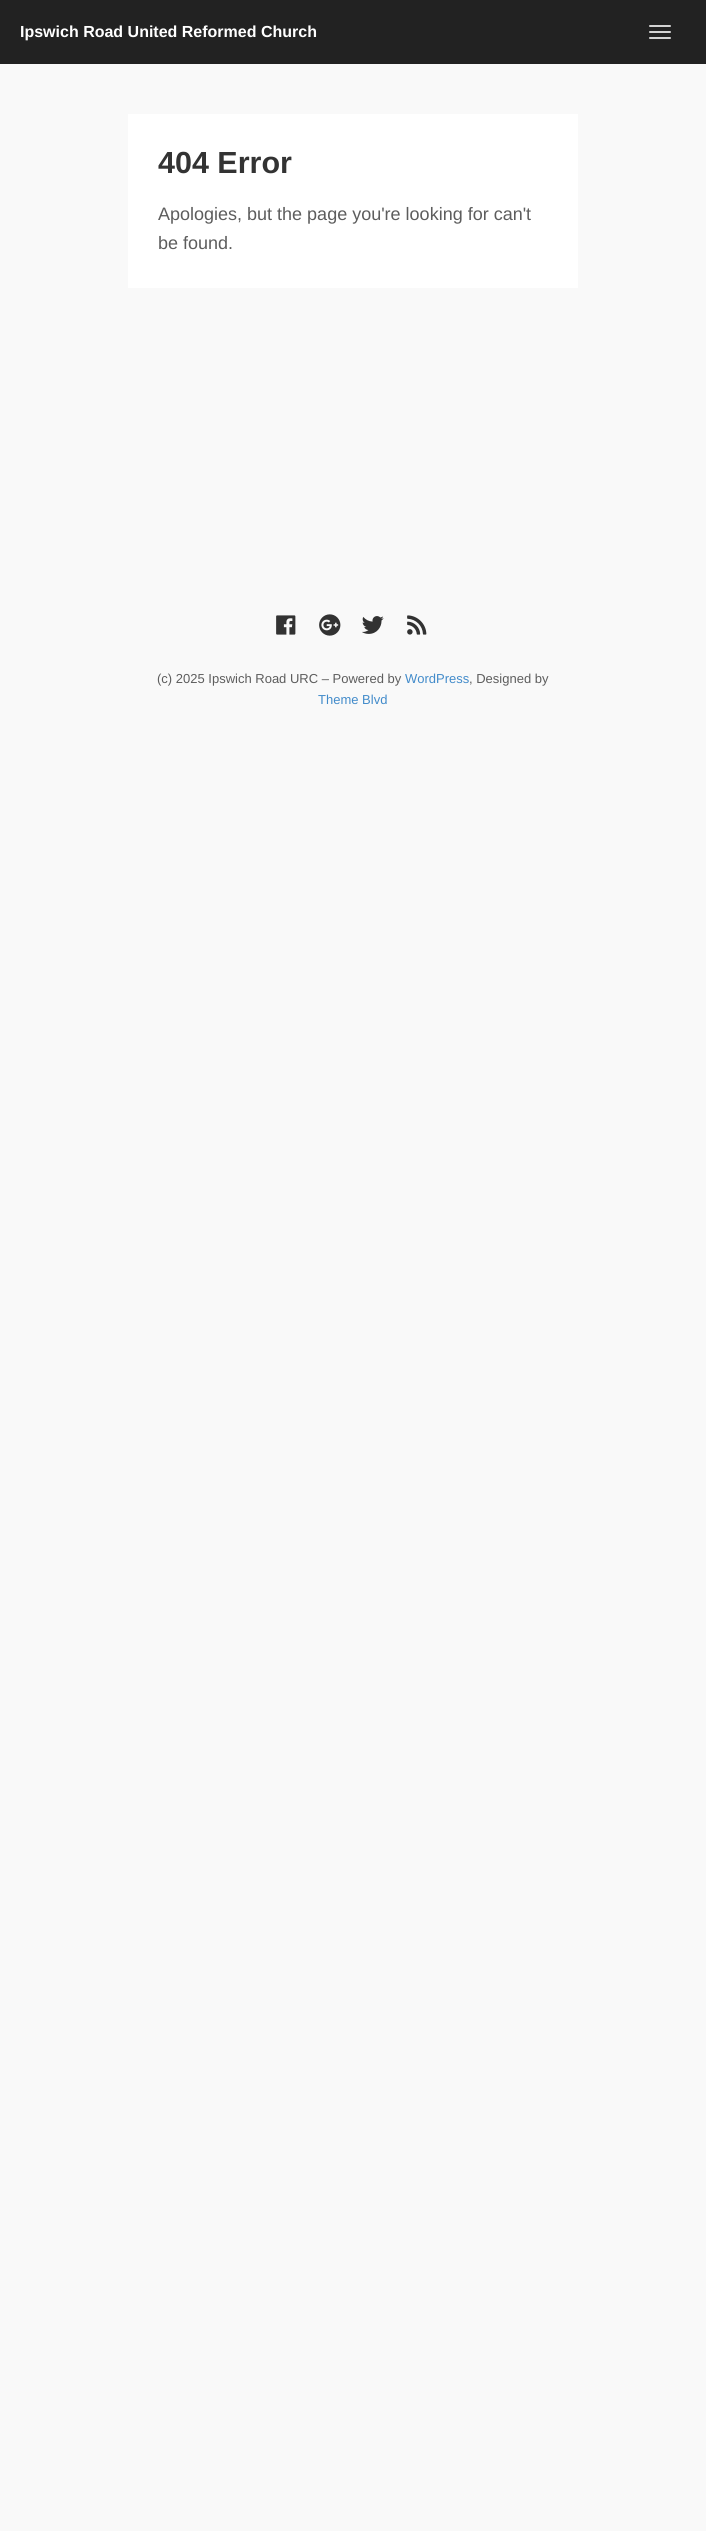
#include <cairo.h>
#include <math.h>
#include <stddef.h>

typedef struct { const char *family; double size; int italic, bold; unsigned color; } style_t;
static cairo_t *ctx;

static void ink(unsigned color) {
    cairo_set_source_rgb(ctx, (color >> 16) / 255.0, (color >> 8 & 255) / 255.0, (color & 255) / 255.0);
}

static void write(double x, double y, const char *s, const style_t *st) {
    cairo_select_font_face(ctx, st->family, st->italic ? CAIRO_FONT_SLANT_ITALIC : CAIRO_FONT_SLANT_NORMAL,
        st->bold ? CAIRO_FONT_WEIGHT_BOLD : CAIRO_FONT_WEIGHT_NORMAL);
    cairo_set_font_size(ctx, st->size);
    ink(st->color);
    cairo_move_to(ctx, x, y);
    cairo_show_text(ctx, s);
}

static void block(double x, double y, double w, double h, unsigned color) {
    ink(color);
    cairo_rectangle(ctx, x, y, w, h);
    cairo_fill(ctx);
}

static void round_path(double x, double y, double w, double h, double r) {
    cairo_new_sub_path(ctx);
    cairo_arc(ctx, x + w - r, y + h - r, r, 0, M_PI / 2);
    cairo_arc(ctx, x + r, y + h - r, r, M_PI / 2, M_PI);
    cairo_arc(ctx, x + r, y + r, r, M_PI, 1.5 * M_PI);
    cairo_arc(ctx, x + w - r, y + r, r, 1.5 * M_PI, 2 * M_PI);
    cairo_close_path(ctx);
}

static void paste(const char *path, double x, double y, double w, double h) {
    cairo_surface_t *image = cairo_image_surface_create_from_png(path);
    cairo_save(ctx);
    cairo_set_source_surface(ctx, image, x, y);
    cairo_rectangle(ctx, x, y, w, h);
    cairo_fill(ctx);
    cairo_restore(ctx);
    cairo_surface_destroy(image);
}

static const style_t s1 = {"Liberation Sans", 16, 0, 1, 0xffffff};
static const style_t s2 = {"Liberation Sans", 30.5, 0, 1, 0x333333};
static const style_t s3 = {"Liberation Sans", 18, 0, 0, 0x5d5d5d};
static const style_t s4 = {"Liberation Sans", 13, 0, 0, 0x5d5d5d};
static const style_t s5 = {"Liberation Sans", 13, 0, 0, 0x428bca};

int main(void) {
    cairo_surface_t *surface = cairo_image_surface_create(CAIRO_FORMAT_RGB24, 706, 2531);
    ctx = cairo_create(surface);
    cairo_font_options_t *options = cairo_font_options_create();
    cairo_font_options_set_hint_metrics(options, CAIRO_HINT_METRICS_OFF);
    cairo_font_options_set_hint_style(options, CAIRO_HINT_STYLE_NONE);
    cairo_set_font_options(ctx, options);
    cairo_set_miter_limit(ctx, 4);
    ink(0xf9f9f9);
    cairo_paint(ctx);
    block(0, 0, 706, 64, 0x222222);
    write(20, 37, "Ipswich Road United Reformed Church", &s1);
    ink(0xd3d3d3);
    round_path(649, 25, 22, 2, 1);
    cairo_fill(ctx);
    round_path(649, 31, 22, 2, 1);
    cairo_fill(ctx);
    round_path(649, 37, 22, 2, 1);
    cairo_fill(ctx);
    block(128, 114, 450, 174, 0xffffff);
    write(158, 173, "404 Error", &s2);
    write(158, 220, "Apologies, but the page you're looking for can't", &s3);
    write(158, 249, "be found.", &s3);
    paste("pic1.png", 276, 615, 20, 20);
    paste("pic2.png", 319, 614, 22, 22);
    paste("pic3.png", 362, 616, 22, 18);
    paste("pic4.png", 407, 615, 20, 20);
    write(157, 683, "(c) 2025 Ipswich Road URC – Powered by", &s4);
    write(405, 683, "WordPress", &s5);
    write(469, 683, ", Designed by", &s4);
    write(318, 704, "Theme Blvd", &s5);
    cairo_surface_write_to_png(surface, "screenshot.png");
    cairo_font_options_destroy(options);
    cairo_destroy(ctx);
    cairo_surface_destroy(surface);
    return 0;
}
